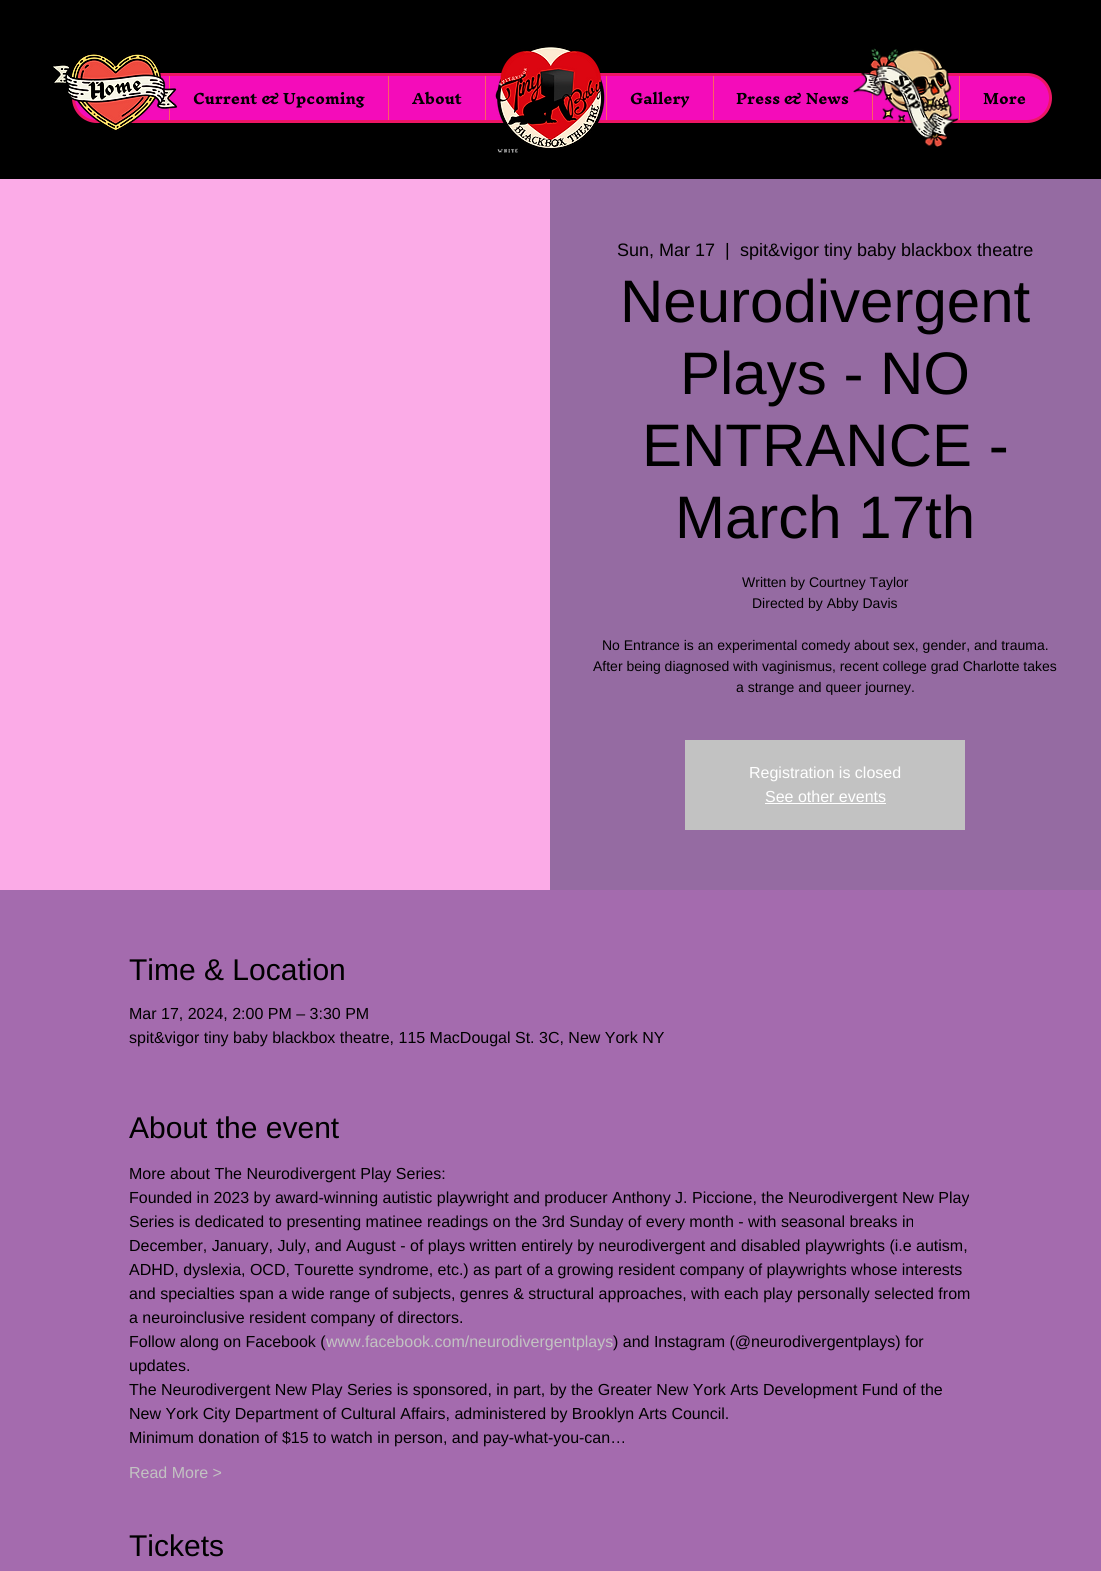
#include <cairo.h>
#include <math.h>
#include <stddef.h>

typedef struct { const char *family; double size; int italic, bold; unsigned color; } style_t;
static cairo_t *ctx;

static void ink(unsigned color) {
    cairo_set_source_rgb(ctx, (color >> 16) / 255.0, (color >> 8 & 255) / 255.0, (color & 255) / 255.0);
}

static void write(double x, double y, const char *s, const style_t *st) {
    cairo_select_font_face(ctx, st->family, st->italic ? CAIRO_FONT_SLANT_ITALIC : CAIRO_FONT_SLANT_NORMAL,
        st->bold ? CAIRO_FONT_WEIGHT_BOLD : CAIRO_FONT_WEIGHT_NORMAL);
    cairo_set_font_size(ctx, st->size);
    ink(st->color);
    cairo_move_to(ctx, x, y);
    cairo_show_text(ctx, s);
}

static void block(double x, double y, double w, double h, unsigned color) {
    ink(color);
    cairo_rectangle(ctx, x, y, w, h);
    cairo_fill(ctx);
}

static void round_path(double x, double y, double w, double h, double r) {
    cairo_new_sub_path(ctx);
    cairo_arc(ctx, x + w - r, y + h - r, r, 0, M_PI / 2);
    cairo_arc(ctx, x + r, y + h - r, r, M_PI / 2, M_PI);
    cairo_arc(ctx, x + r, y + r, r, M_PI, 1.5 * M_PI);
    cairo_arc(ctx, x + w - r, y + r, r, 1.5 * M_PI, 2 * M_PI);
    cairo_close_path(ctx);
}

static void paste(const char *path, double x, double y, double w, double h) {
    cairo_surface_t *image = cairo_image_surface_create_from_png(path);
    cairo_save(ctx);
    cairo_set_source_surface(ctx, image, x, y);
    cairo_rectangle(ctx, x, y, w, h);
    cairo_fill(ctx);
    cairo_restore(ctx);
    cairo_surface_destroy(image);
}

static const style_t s1 = {"Inknut Antiqua", 14, 0, 1, 0x000000};
static const style_t s2 = {"Liberation Sans", 18, 0, 0, 0x000000};
static const style_t s3 = {"Liberation Sans", 60, 0, 0, 0x000000};
static const style_t s4 = {"Liberation Sans", 14, 0, 0, 0x000000};
static const style_t s5 = {"Liberation Sans", 16, 0, 0, 0xffffff};
static const style_t s6 = {"Liberation Sans", 30, 0, 0, 0x000000};
static const style_t s7 = {"Liberation Sans", 16, 0, 0, 0x000000};
static const style_t s8 = {"Liberation Sans", 16, 0, 0, 0xc2c2c2};

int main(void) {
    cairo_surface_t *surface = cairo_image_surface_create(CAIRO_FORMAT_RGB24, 1101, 1571);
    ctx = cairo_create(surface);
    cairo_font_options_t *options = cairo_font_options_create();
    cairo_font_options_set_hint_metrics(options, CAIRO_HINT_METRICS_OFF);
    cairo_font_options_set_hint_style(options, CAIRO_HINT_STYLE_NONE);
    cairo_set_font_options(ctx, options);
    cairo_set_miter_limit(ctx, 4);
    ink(0x000000);
    cairo_paint(ctx);
    ink(0xf40cba);
    round_path(73.5, 74.5, 977, 47, 23.5);
    cairo_fill_preserve(ctx);
    ink(0xed1566);
    cairo_set_line_width(ctx, 3);
    cairo_stroke(ctx);
    block(169, 76, 1, 44, 0xfe6161);
    paste("pic1.png", 53, 53, 125, 78);
    paste("pic2.png", 495, 47, 110, 106);
    block(872, 76, 1, 44, 0xfe6161);
    paste("pic3.png", 853, 48, 105, 99);
    write(193, 104, "Current & Upcoming", &s1);
    block(388, 76, 1, 44, 0xfe6161);
    write(412, 104, "About", &s1);
    block(485, 76, 1, 44, 0xfe6161);
    block(606, 76, 1, 44, 0xfe6161);
    write(630, 104, "Gallery", &s1);
    block(713, 76, 1, 44, 0xfe6161);
    write(736, 104, "Press & News", &s1);
    block(959, 76, 1, 44, 0xfe6161);
    write(983, 104, "More", &s1);
    block(0, 179, 550, 711, 0xfbabe7);
    block(550, 179, 551, 711, 0x956ba2);
    write(617, 256, "Sun, Mar 17", &s2);
    write(725, 256, "|", &s2);
    write(740, 256, "spit&vigor tiny baby blackbox theatre", &s2);
    write(620, 322, "Neurodivergent", &s3);
    write(680, 394, "Plays - NO", &s3);
    write(642, 466, "ENTRANCE -", &s3);
    write(675, 538, "March 17th", &s3);
    write(742, 587, "Written by Courtney Taylor", &s4);
    write(752, 608, "Directed by Abby Davis", &s4);
    write(602, 650, "No Entrance is an experimental comedy about sex, gender, and trauma.", &s4);
    write(593, 671, "After being diagnosed with vaginismus, recent college grad Charlotte takes", &s4);
    write(736, 692, "a strange and queer journey.", &s4);
    block(685, 740, 280, 90, 0xc2c2c2);
    write(749, 778, "Registration is closed", &s5);
    write(765, 802, "See other events", &s5);
    block(765, 803, 121, 1, 0xffffff);
    block(0, 890, 1101, 681, 0xa46bae);
    write(129, 980, "Time & Location", &s6);
    write(129, 1019, "Mar 17, 2024, 2:00 PM – 3:30 PM", &s7);
    write(129, 1043, "spit&vigor tiny baby blackbox theatre, 115 MacDougal St. 3C, New York NY", &s7);
    write(129, 1138, "About the event", &s6);
    write(129, 1179, "More about The Neurodivergent Play Series:", &s7);
    write(129, 1203, "Founded in 2023 by award-winning autistic playwright and producer Anthony J. Piccione, the Neurodivergent New Play", &s7);
    write(129, 1227, "Series is dedicated to presenting matinee readings on the 3rd Sunday of every month - with seasonal breaks in", &s7);
    write(129, 1251, "December, January, July, and August - of plays written entirely by neurodivergent and disabled playwrights (i.e autism,", &s7);
    write(129, 1275, "ADHD, dyslexia, OCD, Tourette syndrome, etc.) as part of a growing resident company of playwrights whose interests", &s7);
    write(129, 1299, "and specialties span a wide range of subjects, genres & structural approaches, with each play personally selected from", &s7);
    write(129, 1323, "a neuroinclusive resident company of directors.", &s7);
    write(129, 1347, "Follow along on Facebook (", &s7);
    write(326, 1347, "www.facebook.com/neurodivergentplays", &s8);
    write(613, 1347, ") and Instagram (@neurodivergentplays) for", &s7);
    write(129, 1371, "updates.", &s7);
    write(129, 1395, "The Neurodivergent New Play Series is sponsored, in part, by the Greater New York Arts Development Fund of the", &s7);
    write(129, 1419, "New York City Department of Cultural Affairs, administered by Brooklyn Arts Council.", &s7);
    write(129, 1443, "Minimum donation of $15 to watch in person, and pay-what-you-can…", &s7);
    write(129, 1478, "Read More >", &s8);
    write(129, 1556, "Tickets", &s6);
    cairo_surface_write_to_png(surface, "screenshot.png");
    cairo_font_options_destroy(options);
    cairo_destroy(ctx);
    cairo_surface_destroy(surface);
    return 0;
}
